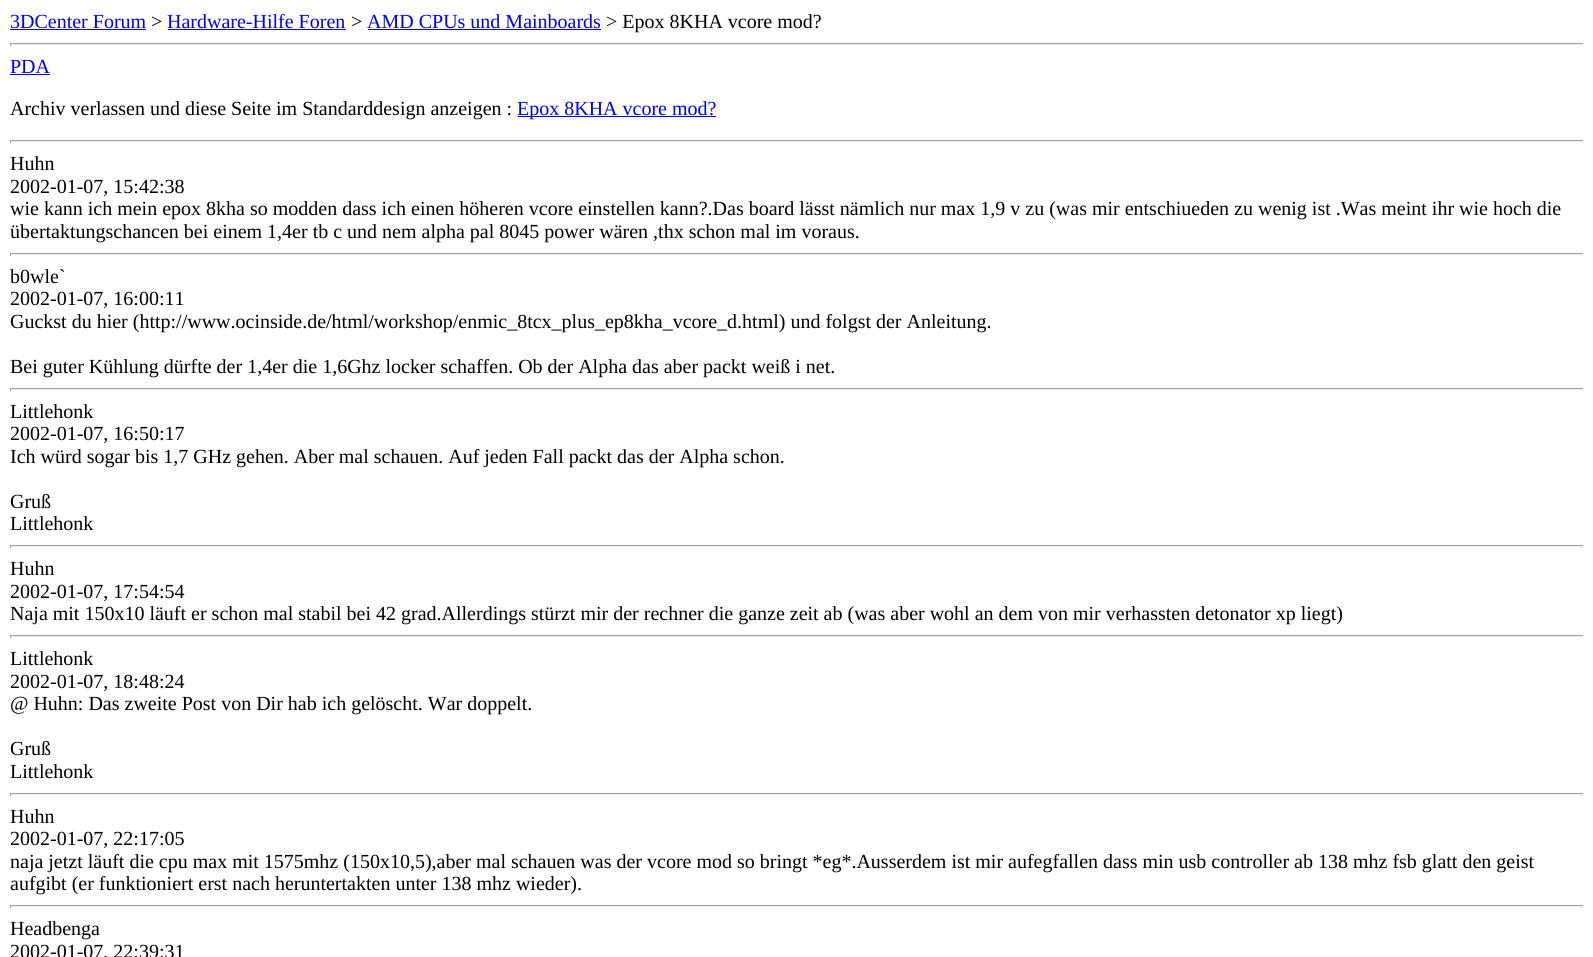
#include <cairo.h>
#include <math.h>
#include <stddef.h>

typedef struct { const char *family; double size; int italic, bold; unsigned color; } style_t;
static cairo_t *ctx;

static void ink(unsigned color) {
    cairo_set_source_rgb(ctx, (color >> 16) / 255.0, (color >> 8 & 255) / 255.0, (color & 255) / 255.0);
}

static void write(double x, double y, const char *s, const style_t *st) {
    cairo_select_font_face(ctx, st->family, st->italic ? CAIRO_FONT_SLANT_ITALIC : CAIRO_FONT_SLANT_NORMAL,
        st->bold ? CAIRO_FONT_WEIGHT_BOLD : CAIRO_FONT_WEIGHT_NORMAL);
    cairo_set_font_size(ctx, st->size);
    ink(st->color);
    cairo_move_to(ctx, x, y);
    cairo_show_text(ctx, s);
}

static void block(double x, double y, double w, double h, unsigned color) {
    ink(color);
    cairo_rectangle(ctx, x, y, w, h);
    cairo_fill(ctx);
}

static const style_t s1 = {"Liberation Serif", 20, 0, 0, 0x0000ee};
static const style_t s2 = {"Liberation Serif", 20, 0, 0, 0x000000};

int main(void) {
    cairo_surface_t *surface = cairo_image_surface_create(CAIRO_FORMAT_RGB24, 1593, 957);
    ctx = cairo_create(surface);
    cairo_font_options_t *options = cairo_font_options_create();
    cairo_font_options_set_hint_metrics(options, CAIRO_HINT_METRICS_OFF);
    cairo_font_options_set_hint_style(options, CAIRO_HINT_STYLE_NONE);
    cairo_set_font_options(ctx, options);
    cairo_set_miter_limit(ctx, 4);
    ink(0xffffff);
    cairo_paint(ctx);
    write(10, 28, "3DCenter Forum", &s1);
    block(10, 29, 136, 1, 0x0000ee);
    write(151, 28, ">", &s2);
    write(167, 28, "Hardware-Hilfe Foren", &s1);
    block(168, 29, 178, 1, 0x0000ee);
    write(351, 28, ">", &s2);
    write(367, 28, "AMD CPUs und Mainboards", &s1);
    block(368, 29, 233, 1, 0x0000ee);
    write(606, 28, "> Epox 8KHA vcore mod?", &s2);
    block(10, 43, 1574, 1, 0x9f9f9f);
    block(1583, 43, 1, 3, 0xeeeeee);
    block(10, 44, 1574, 1, 0xeeeeee);
    block(10, 43, 1, 3, 0x9f9f9f);
    write(10, 73, "PDA", &s1);
    block(10, 74, 40, 1, 0x0000ee);
    write(10, 115, "Archiv verlassen und diese Seite im Standarddesign anzeigen :", &s2);
    block(518, 116, 198, 1, 0x0000ee);
    write(517, 115, "Epox 8KHA vcore mod?", &s1);
    block(10, 140, 1574, 1, 0x9f9f9f);
    block(1583, 140, 1, 3, 0xeeeeee);
    block(10, 141, 1574, 1, 0xeeeeee);
    block(10, 140, 1, 3, 0x9f9f9f);
    write(10, 170, "Huhn", &s2);
    write(10, 193, "2002-01-07, 15:42:38", &s2);
    write(10, 215, "wie kann ich mein epox 8kha so modden dass ich einen höheren vcore einstellen kann?.Das board lässt nämlich nur max 1,9 v zu (was mir entschiueden zu wenig ist .Was meint ihr wie hoch die", &s2);
    write(10, 238, "übertaktungschancen bei einem 1,4er tb c und nem alpha pal 8045 power wären ,thx schon mal im voraus.", &s2);
    block(10, 253, 1574, 1, 0x9f9f9f);
    block(1583, 253, 1, 3, 0xeeeeee);
    block(10, 254, 1574, 1, 0xeeeeee);
    block(10, 253, 1, 3, 0x9f9f9f);
    write(10, 283, "b0wle`", &s2);
    write(10, 305, "2002-01-07, 16:00:11", &s2);
    write(10, 328, "Guckst du hier (http://www.ocinside.de/html/workshop/enmic_8tcx_plus_ep8kha_vcore_d.html) und folgst der Anleitung.", &s2);
    write(10, 373, "Bei guter Kühlung dürfte der 1,4er die 1,6Ghz locker schaffen. Ob der Alpha das aber packt weiß i net.", &s2);
    block(10, 388, 1574, 1, 0x9f9f9f);
    block(1583, 388, 1, 3, 0xeeeeee);
    block(10, 389, 1574, 1, 0xeeeeee);
    block(10, 388, 1, 3, 0x9f9f9f);
    write(10, 418, "Littlehonk", &s2);
    write(10, 440, "2002-01-07, 16:50:17", &s2);
    write(10, 463, "Ich würd sogar bis 1,7 GHz gehen. Aber mal schauen. Auf jeden Fall packt das der Alpha schon.", &s2);
    write(10, 508, "Gruß", &s2);
    write(10, 530, "Littlehonk", &s2);
    block(10, 545, 1574, 1, 0x9f9f9f);
    block(1583, 545, 1, 3, 0xeeeeee);
    block(10, 546, 1574, 1, 0xeeeeee);
    block(10, 545, 1, 3, 0x9f9f9f);
    write(10, 575, "Huhn", &s2);
    write(10, 598, "2002-01-07, 17:54:54", &s2);
    write(10, 620, "Naja mit 150x10 läuft er schon mal stabil bei 42 grad.Allerdings stürzt mir der rechner die ganze zeit ab (was aber wohl an dem von mir verhassten detonator xp liegt)", &s2);
    block(10, 635, 1574, 1, 0x9f9f9f);
    block(1583, 635, 1, 3, 0xeeeeee);
    block(10, 636, 1574, 1, 0xeeeeee);
    block(10, 635, 1, 3, 0x9f9f9f);
    write(10, 665, "Littlehonk", &s2);
    write(10, 688, "2002-01-07, 18:48:24", &s2);
    write(10, 710, "@ Huhn: Das zweite Post von Dir hab ich gelöscht. War doppelt.", &s2);
    write(10, 755, "Gruß", &s2);
    write(10, 778, "Littlehonk", &s2);
    block(10, 793, 1574, 1, 0x9f9f9f);
    block(1583, 793, 1, 3, 0xeeeeee);
    block(10, 794, 1574, 1, 0xeeeeee);
    block(10, 793, 1, 3, 0x9f9f9f);
    write(10, 823, "Huhn", &s2);
    write(10, 845, "2002-01-07, 22:17:05", &s2);
    write(10, 868, "naja jetzt läuft die cpu max mit 1575mhz (150x10,5),aber mal schauen was der vcore mod so bringt *eg*.Ausserdem ist mir aufegfallen dass min usb controller ab 138 mhz fsb glatt den geist", &s2);
    write(10, 890, "aufgibt (er funktioniert erst nach heruntertakten unter 138 mhz wieder).", &s2);
    block(10, 905, 1574, 1, 0x9f9f9f);
    block(1583, 905, 1, 3, 0xeeeeee);
    block(10, 906, 1574, 1, 0xeeeeee);
    block(10, 905, 1, 3, 0x9f9f9f);
    write(10, 935, "Headbenga", &s2);
    write(10, 958, "2002-01-07, 22:39:31", &s2);
    cairo_surface_write_to_png(surface, "screenshot.png");
    cairo_font_options_destroy(options);
    cairo_destroy(ctx);
    cairo_surface_destroy(surface);
    return 0;
}
